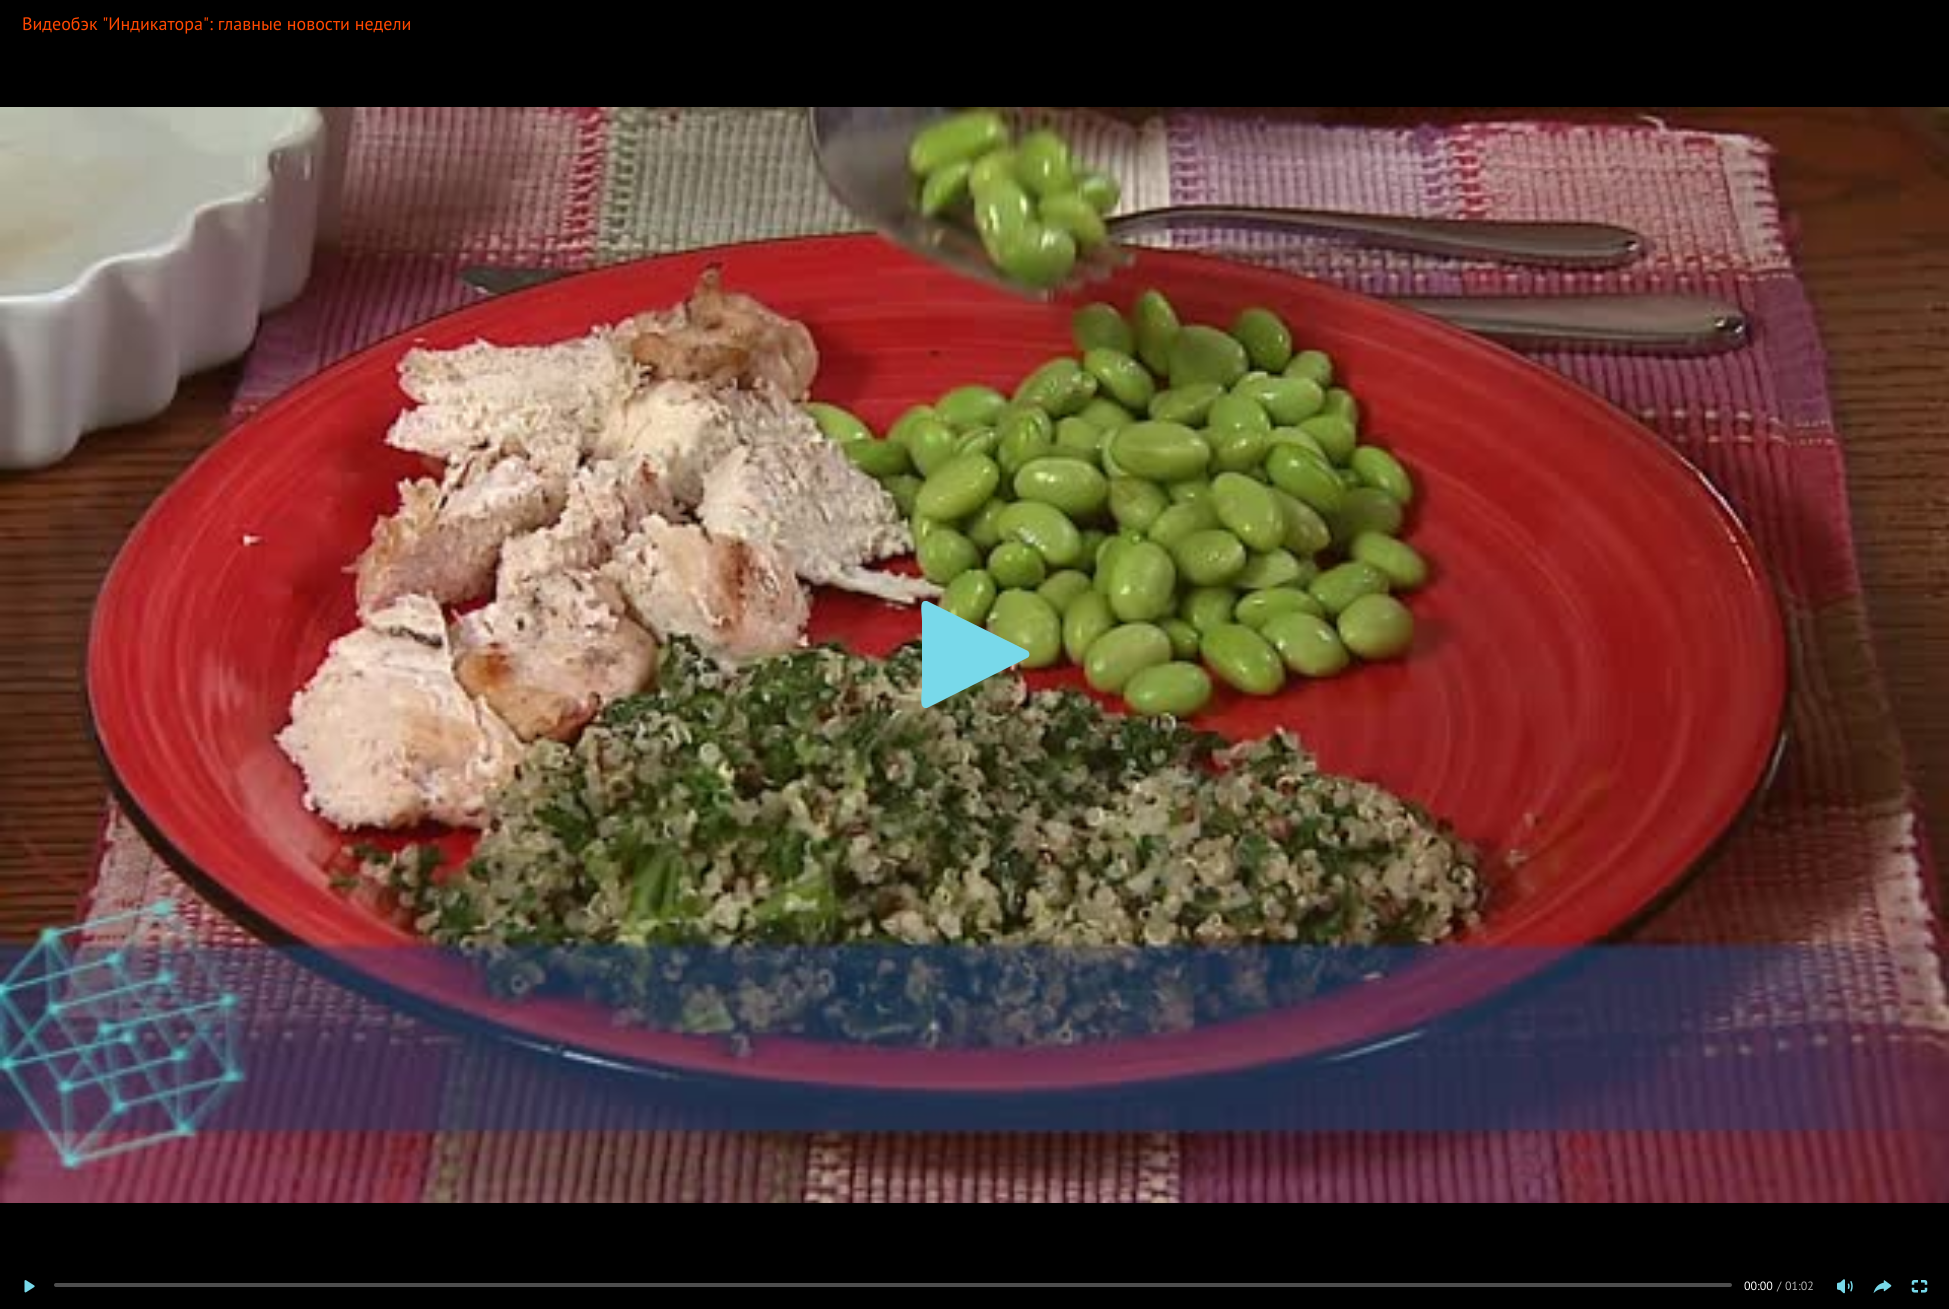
#include <cairo.h>
#include <math.h>
#include <stddef.h>

typedef struct { const char *family; double size; int italic, bold; unsigned color; } style_t;
static cairo_t *ctx;

static void ink(unsigned color) {
    cairo_set_source_rgb(ctx, (color >> 16) / 255.0, (color >> 8 & 255) / 255.0, (color & 255) / 255.0);
}

static void write(double x, double y, const char *s, const style_t *st) {
    cairo_select_font_face(ctx, st->family, st->italic ? CAIRO_FONT_SLANT_ITALIC : CAIRO_FONT_SLANT_NORMAL,
        st->bold ? CAIRO_FONT_WEIGHT_BOLD : CAIRO_FONT_WEIGHT_NORMAL);
    cairo_set_font_size(ctx, st->size);
    ink(st->color);
    cairo_move_to(ctx, x, y);
    cairo_show_text(ctx, s);
}

static void round_path(double x, double y, double w, double h, double r) {
    cairo_new_sub_path(ctx);
    cairo_arc(ctx, x + w - r, y + h - r, r, 0, M_PI / 2);
    cairo_arc(ctx, x + r, y + h - r, r, M_PI / 2, M_PI);
    cairo_arc(ctx, x + r, y + r, r, M_PI, 1.5 * M_PI);
    cairo_arc(ctx, x + w - r, y + r, r, 1.5 * M_PI, 2 * M_PI);
    cairo_close_path(ctx);
}

static void paste(const char *path, double x, double y, double w, double h) {
    cairo_surface_t *image = cairo_image_surface_create_from_png(path);
    cairo_save(ctx);
    cairo_set_source_surface(ctx, image, x, y);
    cairo_rectangle(ctx, x, y, w, h);
    cairo_fill(ctx);
    cairo_restore(ctx);
    cairo_surface_destroy(image);
}

static const style_t s1 = {"PT Sans", 18, 0, 0, 0xff4800};
static const style_t s2 = {"PT Sans", 12, 0, 0, 0xffffff};
static const style_t s3 = {"PT Sans", 12, 0, 0, 0xb3b3b3};

int main(void) {
    cairo_surface_t *surface = cairo_image_surface_create(CAIRO_FORMAT_RGB24, 1949, 1309);
    ctx = cairo_create(surface);
    cairo_font_options_t *options = cairo_font_options_create();
    cairo_font_options_set_hint_metrics(options, CAIRO_HINT_METRICS_OFF);
    cairo_font_options_set_hint_style(options, CAIRO_HINT_STYLE_NONE);
    cairo_set_font_options(ctx, options);
    cairo_set_miter_limit(ctx, 4);
    ink(0x000000);
    cairo_paint(ctx);
    write(22, 30, "Видеобэк \"Индикатора\": главные новости недели", &s1);
    paste("pic5.png", 0, 107, 1949, 1096);
    ink(0x78d9ea);
    cairo_new_path(ctx);
    cairo_move_to(ctx, 1027, 658);
    cairo_line_to(ctx, 927, 708);
    cairo_line_to(ctx, 925, 708);
    cairo_curve_to(ctx, 919, 707, 922, 694, 922, 688);
    cairo_line_to(ctx, 922, 621);
    cairo_curve_to(ctx, 922, 614, 919, 601, 925, 601);
    cairo_line_to(ctx, 927, 601);
    cairo_line_to(ctx, 1028, 651);
    cairo_curve_to(ctx, 1030, 653, 1030, 657, 1027, 658);
    cairo_close_path(ctx);
    cairo_fill(ctx);
    paste("pic1.png", 24, 1280, 11, 13);
    ink(0x4d4d4d);
    round_path(54, 1283, 1678, 4, 2);
    cairo_fill(ctx);
    write(1744, 1290, "00:00", &s2);
    write(1777, 1290, "/", &s3);
    write(1785, 1290, "01:02", &s3);
    paste("pic2.png", 1837, 1279, 16, 15);
    paste("pic3.png", 1873, 1280, 19, 14);
    paste("pic4.png", 1911, 1280, 17, 13);
    cairo_surface_write_to_png(surface, "screenshot.png");
    cairo_font_options_destroy(options);
    cairo_destroy(ctx);
    cairo_surface_destroy(surface);
    return 0;
}
